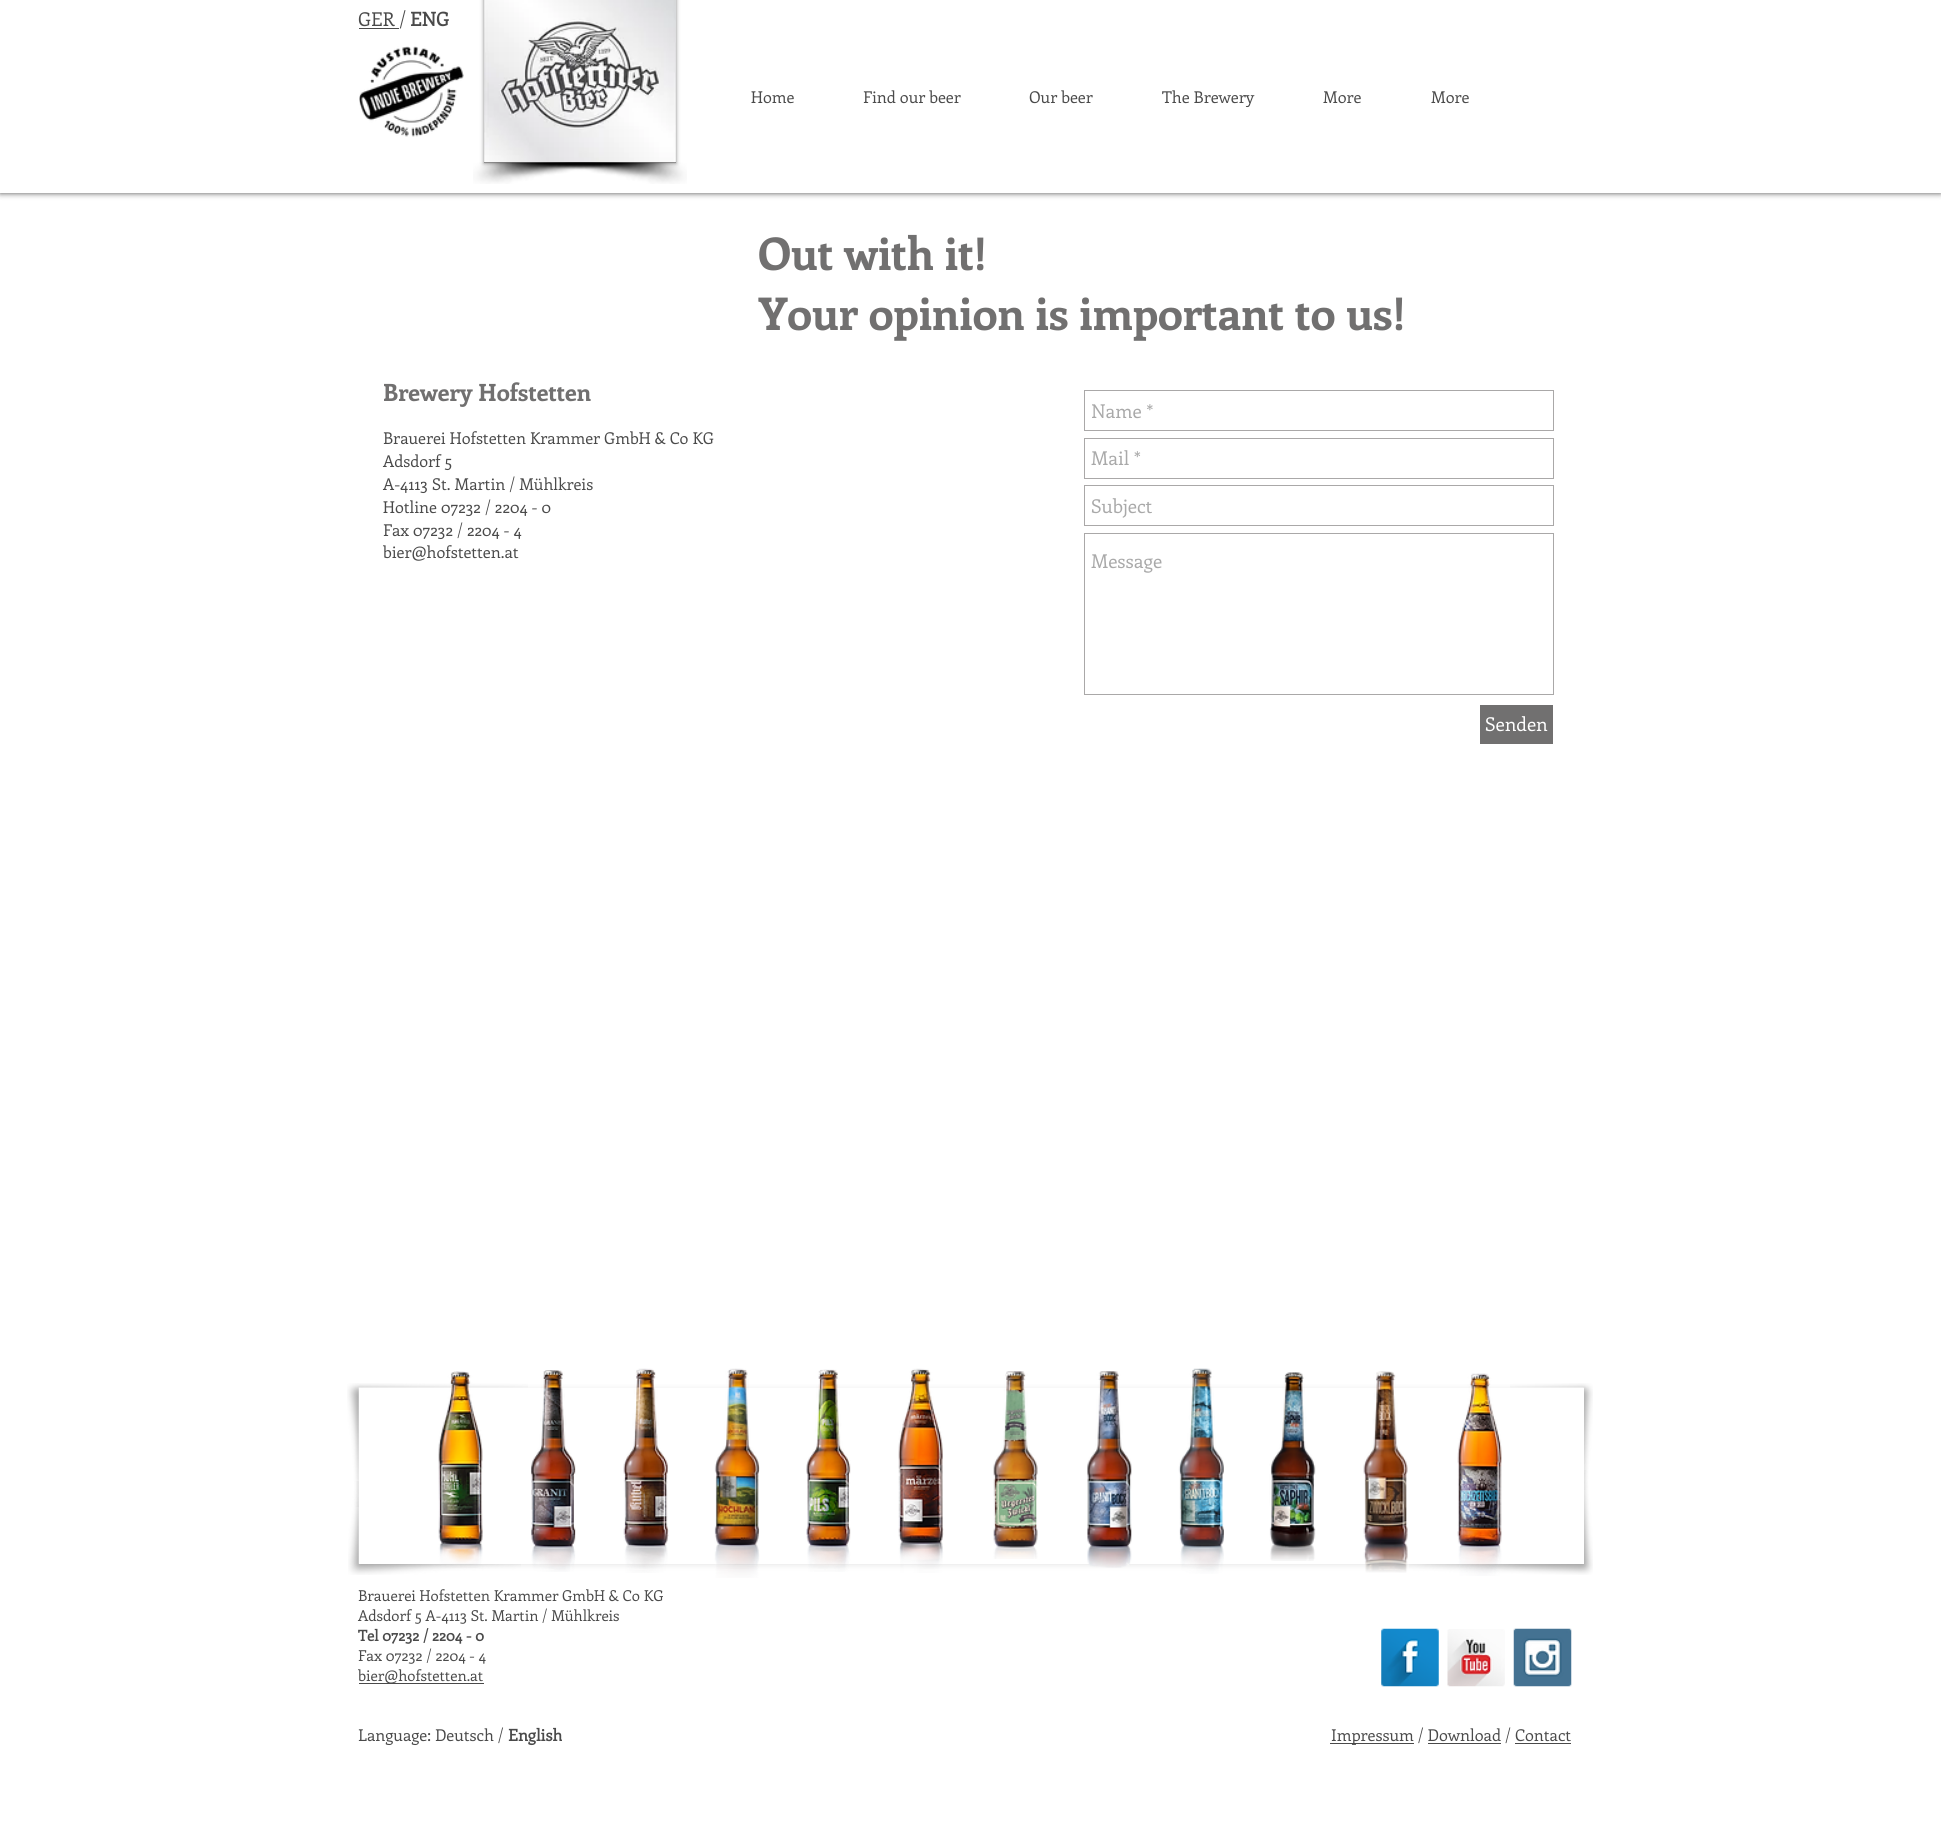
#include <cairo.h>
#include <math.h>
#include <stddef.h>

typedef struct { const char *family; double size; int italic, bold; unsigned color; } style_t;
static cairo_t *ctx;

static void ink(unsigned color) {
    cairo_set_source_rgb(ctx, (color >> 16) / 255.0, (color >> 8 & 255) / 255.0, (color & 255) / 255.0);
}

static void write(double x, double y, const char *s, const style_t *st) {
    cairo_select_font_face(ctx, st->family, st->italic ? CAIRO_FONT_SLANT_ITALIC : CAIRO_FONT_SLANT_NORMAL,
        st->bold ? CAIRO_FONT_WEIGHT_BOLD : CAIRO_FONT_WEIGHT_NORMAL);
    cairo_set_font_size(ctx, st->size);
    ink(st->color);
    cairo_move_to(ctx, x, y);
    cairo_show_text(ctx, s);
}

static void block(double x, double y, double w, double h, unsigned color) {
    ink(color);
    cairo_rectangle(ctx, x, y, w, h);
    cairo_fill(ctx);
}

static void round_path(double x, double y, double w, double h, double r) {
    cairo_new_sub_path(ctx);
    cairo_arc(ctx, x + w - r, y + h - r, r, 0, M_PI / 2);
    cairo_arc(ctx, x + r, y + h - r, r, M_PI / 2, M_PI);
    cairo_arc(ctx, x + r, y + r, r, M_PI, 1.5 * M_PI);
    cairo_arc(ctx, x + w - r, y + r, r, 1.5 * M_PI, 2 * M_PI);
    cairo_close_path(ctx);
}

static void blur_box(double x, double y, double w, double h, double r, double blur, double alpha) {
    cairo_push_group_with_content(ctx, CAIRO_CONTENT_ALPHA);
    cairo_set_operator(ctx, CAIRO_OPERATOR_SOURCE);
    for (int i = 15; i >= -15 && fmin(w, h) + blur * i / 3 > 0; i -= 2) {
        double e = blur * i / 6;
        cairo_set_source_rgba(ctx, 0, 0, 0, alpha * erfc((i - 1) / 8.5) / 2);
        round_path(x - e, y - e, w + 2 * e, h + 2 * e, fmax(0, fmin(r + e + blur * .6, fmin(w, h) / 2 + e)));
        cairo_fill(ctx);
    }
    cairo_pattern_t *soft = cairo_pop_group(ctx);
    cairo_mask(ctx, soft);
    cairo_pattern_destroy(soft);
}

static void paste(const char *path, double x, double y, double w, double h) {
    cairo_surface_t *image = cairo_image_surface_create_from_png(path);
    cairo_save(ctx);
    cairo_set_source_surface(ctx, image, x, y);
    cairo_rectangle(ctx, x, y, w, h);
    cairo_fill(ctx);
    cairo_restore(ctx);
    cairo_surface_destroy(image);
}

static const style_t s1 = {"Enriqueta", 19, 0, 0, 0x4a4a4a};
static const style_t s2 = {"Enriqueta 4", 19, 0, 1, 0x4a4a4a};
static const style_t s3 = {"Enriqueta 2", 16.25, 0, 0, 0x4a4a4a};
static const style_t s4 = {"Enriqueta", 45, 0, 1, 0x717070};
static const style_t s5 = {"Enriqueta 2", 23.75, 0, 1, 0x717070};
static const style_t s6 = {"Enriqueta", 16.25, 0, 0, 0x4a4a4a};
static const style_t s7 = {"Enriqueta 2", 19, 0, 0, 0xa9a9a9};
static const style_t s8 = {"Enriqueta 2", 19, 0, 0, 0xffffff};
static const style_t s9 = {"Enriqueta 2", 15, 0, 0, 0x4a4a4a};
static const style_t s10 = {"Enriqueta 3", 15, 0, 1, 0x4a4a4a};
static const style_t s11 = {"Enriqueta 4", 16.25, 0, 1, 0x4a4a4a};

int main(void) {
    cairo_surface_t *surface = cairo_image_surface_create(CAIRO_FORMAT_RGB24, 1941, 1824);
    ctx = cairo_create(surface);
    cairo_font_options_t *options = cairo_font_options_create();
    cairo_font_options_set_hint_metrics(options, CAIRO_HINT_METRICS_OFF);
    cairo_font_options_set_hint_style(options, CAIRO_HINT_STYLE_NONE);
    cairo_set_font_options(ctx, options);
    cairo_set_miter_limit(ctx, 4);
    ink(0xffffff);
    cairo_paint(ctx);
    ink(0x000000);
    blur_box(0, 0, 1941, 193, 0, 3, 0.7);
    block(0, 0, 1941, 193, 0xffffff);
    block(359, 28, 40, 1, 0x4a4a4a);
    write(358, 26, "GER /", &s1);
    write(410, 26, "ENG", &s2);
    ink(0x000000);
    blur_box(484, -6, 192, 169, 0, 2, 0.5);
    block(484, 162, 192, 1, 0x717070);
    paste("pic1.png", 484, 0, 192, 163);
    paste("pic2.png", 473, 162, 186, 22);
    paste("pic3.png", 512, 162, 175, 22);
    paste("pic4.png", 359, 46, 105, 91);
    write(751, 103, "Home", &s3);
    write(863, 103, "Find our beer", &s3);
    write(1029, 103, "Our beer", &s3);
    write(1162, 103, "The Brewery", &s3);
    write(1323, 103, "More", &s3);
    write(1431, 103, "More", &s3);
    write(758, 270, "Out with it!", &s4);
    write(758, 330, "Your opinion is important to us!", &s4);
    write(383, 401, "Brewery Hofstetten", &s5);
    write(383, 444, "Brauerei Hofstetten Krammer GmbH & Co KG", &s6);
    write(383, 467, "Adsdorf 5", &s6);
    write(383, 490, "A-4113 St. Martin / Mühlkreis", &s6);
    write(383, 513, "Hotline 07232 / 2204 - 0", &s6);
    write(383, 536, "Fax 07232 / 2204 - 4", &s6);
    write(383, 558, "bier@hofstetten.at", &s6);
    cairo_rectangle(ctx, 1084.5, 390.5, 469, 40);
    ink(0xaaa8a8);
    cairo_set_line_width(ctx, 1);
    cairo_stroke(ctx);
    write(1091, 418, "Name *", &s7);
    cairo_rectangle(ctx, 1084.5, 438.5, 469, 40);
    ink(0xaaa8a8);
    cairo_stroke(ctx);
    write(1091, 465, "Mail *", &s7);
    cairo_rectangle(ctx, 1084.5, 485.5, 469, 40);
    ink(0xaaa8a8);
    cairo_stroke(ctx);
    write(1091, 513, "Subject", &s7);
    cairo_rectangle(ctx, 1084.5, 533.5, 469, 161);
    ink(0xaaa8a8);
    cairo_stroke(ctx);
    write(1091, 568, "Message", &s7);
    block(1480, 705, 73, 39, 0x717070);
    write(1485, 731, "Senden", &s8);
    paste("pic17.png", 347, 1383, 181, 124);
    paste("pic18.png", 1510, 1383, 83, 107);
    paste("pic19.png", 348, 1481, 173, 94);
    paste("pic20.png", 1409, 1470, 184, 105);
    ink(0x000000);
    blur_box(359, 1389, 1225, 176, 0, 3, 0.1);
    block(359, 1388, 1225, 176, 0xffffff);
    paste("pic5.png", 438, 1371, 45, 197);
    paste("pic6.png", 531, 1370, 45, 202);
    paste("pic7.png", 623, 1368, 46, 205);
    paste("pic8.png", 714, 1368, 46, 210);
    paste("pic9.png", 806, 1369, 45, 203);
    paste("pic10.png", 898, 1368, 46, 205);
    paste("pic11.png", 993, 1371, 45, 188);
    paste("pic12.png", 1087, 1371, 45, 197);
    paste("pic13.png", 1178, 1368, 46, 206);
    paste("pic14.png", 1269, 1372, 47, 189);
    paste("pic15.png", 1363, 1371, 45, 202);
    paste("pic16.png", 1457, 1373, 45, 203);
    write(358, 1601, "Brauerei Hofstetten Krammer GmbH & Co KG", &s9);
    write(358, 1621, "Adsdorf 5 A-4113 St. Martin / Mühlkreis", &s9);
    write(358, 1641, "Tel 07232 / 2204 - 0", &s10);
    write(358, 1661, "Fax 07232 / 2204 - 4", &s9);
    block(359, 1683, 125, 1, 0x4a4a4a);
    write(358, 1681, "bier@hofstetten.at", &s9);
    paste("pic21.png", 1381, 1628, 58, 59);
    paste("pic22.png", 1447, 1629, 58, 58);
    paste("pic23.png", 1513, 1628, 59, 59);
    write(358, 1741, "Language: Deutsch /", &s6);
    write(508, 1741, "English", &s11);
    block(1330, 1743, 84, 1, 0x4a4a4a);
    write(1331, 1741, "Impressum / Download / Contact", &s6);
    block(1428, 1743, 73, 1, 0x4a4a4a);
    block(1515, 1743, 56, 1, 0x4a4a4a);
    cairo_surface_write_to_png(surface, "screenshot.png");
    cairo_font_options_destroy(options);
    cairo_destroy(ctx);
    cairo_surface_destroy(surface);
    return 0;
}
